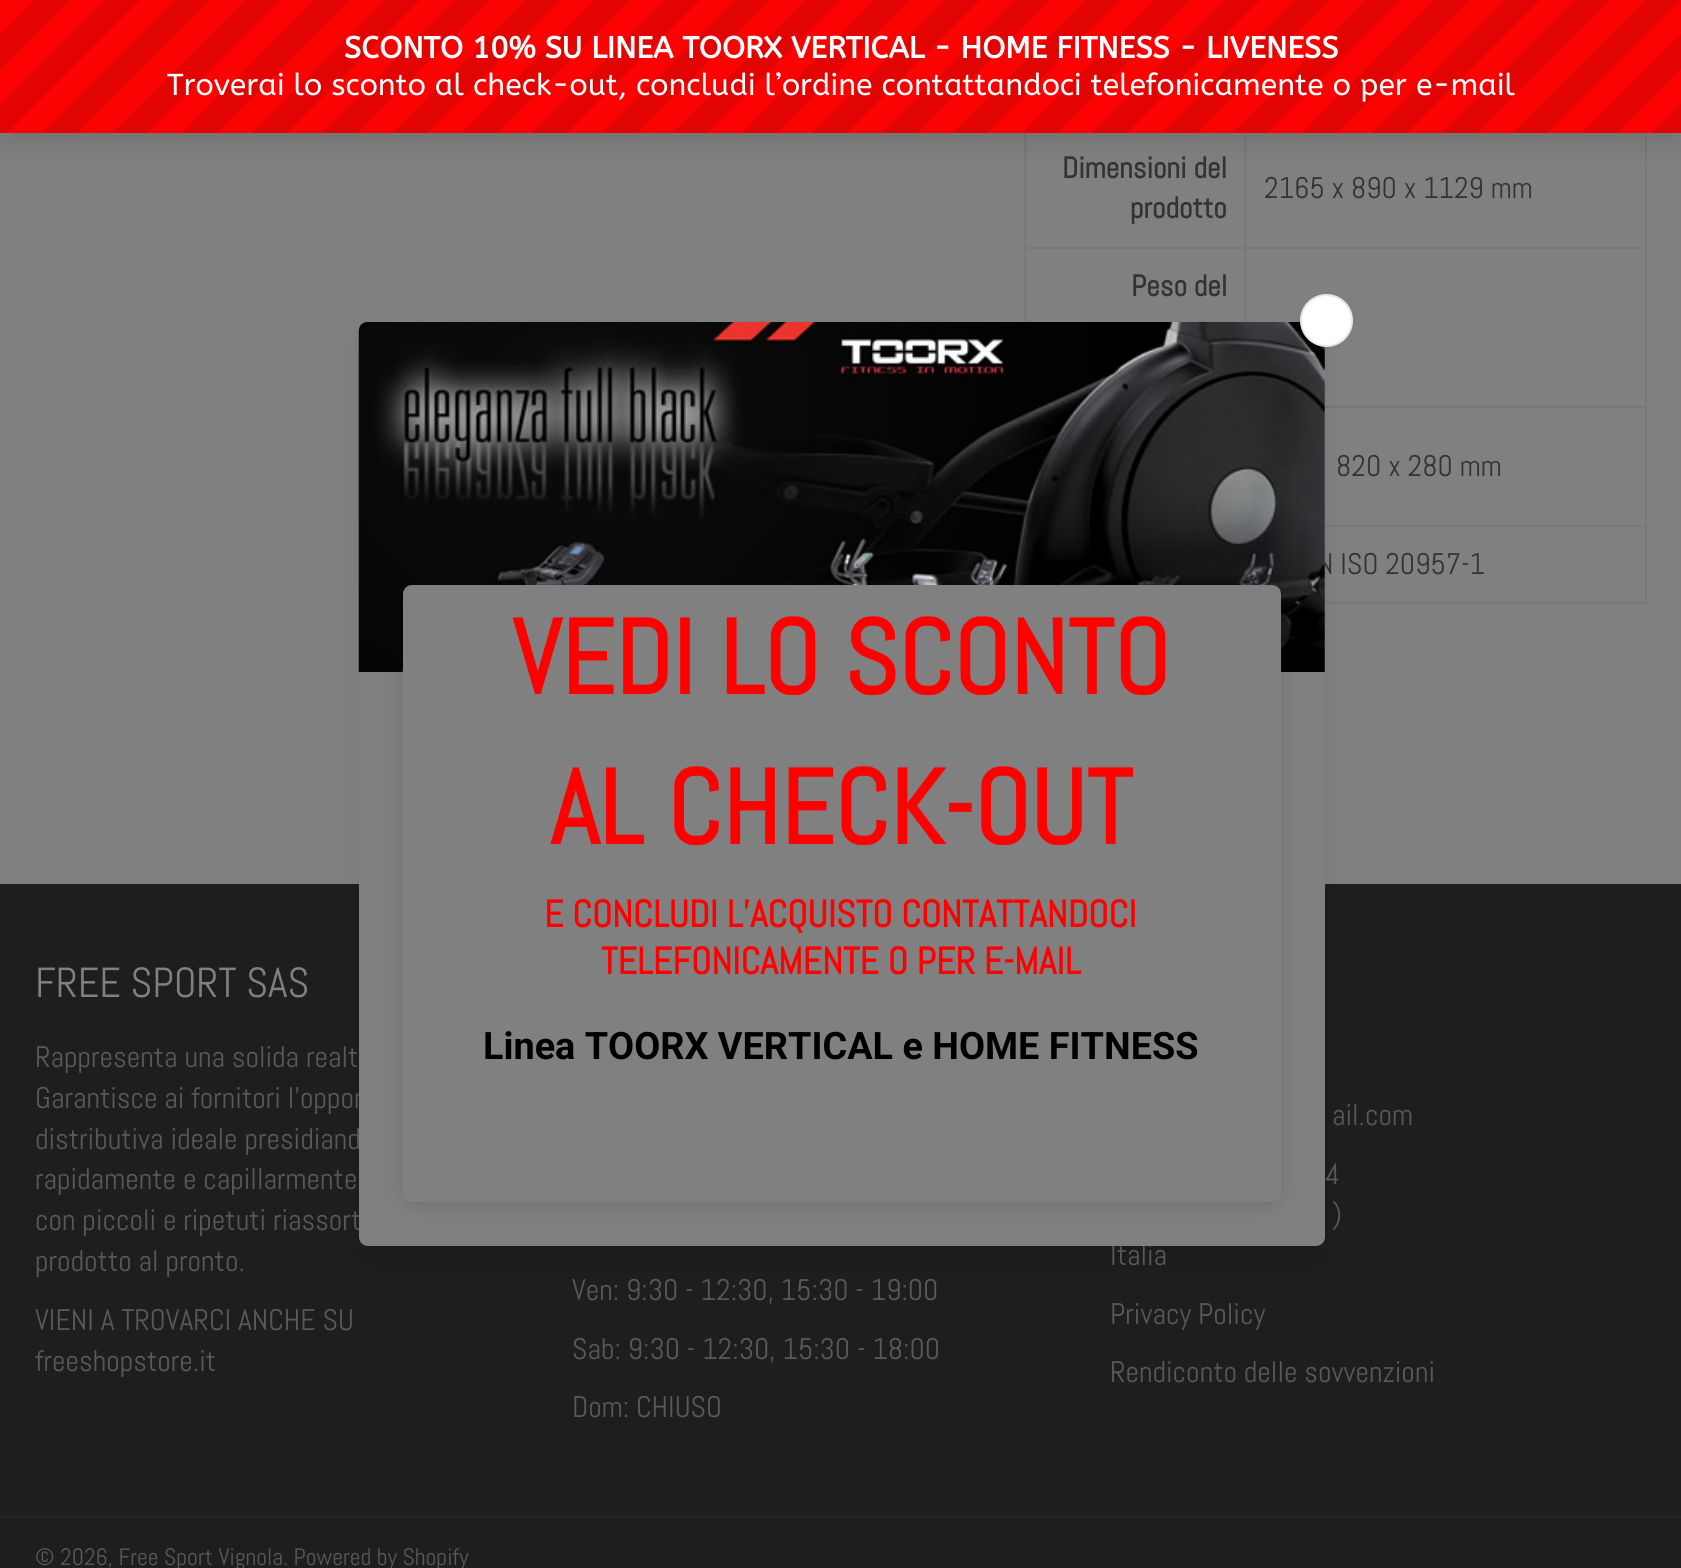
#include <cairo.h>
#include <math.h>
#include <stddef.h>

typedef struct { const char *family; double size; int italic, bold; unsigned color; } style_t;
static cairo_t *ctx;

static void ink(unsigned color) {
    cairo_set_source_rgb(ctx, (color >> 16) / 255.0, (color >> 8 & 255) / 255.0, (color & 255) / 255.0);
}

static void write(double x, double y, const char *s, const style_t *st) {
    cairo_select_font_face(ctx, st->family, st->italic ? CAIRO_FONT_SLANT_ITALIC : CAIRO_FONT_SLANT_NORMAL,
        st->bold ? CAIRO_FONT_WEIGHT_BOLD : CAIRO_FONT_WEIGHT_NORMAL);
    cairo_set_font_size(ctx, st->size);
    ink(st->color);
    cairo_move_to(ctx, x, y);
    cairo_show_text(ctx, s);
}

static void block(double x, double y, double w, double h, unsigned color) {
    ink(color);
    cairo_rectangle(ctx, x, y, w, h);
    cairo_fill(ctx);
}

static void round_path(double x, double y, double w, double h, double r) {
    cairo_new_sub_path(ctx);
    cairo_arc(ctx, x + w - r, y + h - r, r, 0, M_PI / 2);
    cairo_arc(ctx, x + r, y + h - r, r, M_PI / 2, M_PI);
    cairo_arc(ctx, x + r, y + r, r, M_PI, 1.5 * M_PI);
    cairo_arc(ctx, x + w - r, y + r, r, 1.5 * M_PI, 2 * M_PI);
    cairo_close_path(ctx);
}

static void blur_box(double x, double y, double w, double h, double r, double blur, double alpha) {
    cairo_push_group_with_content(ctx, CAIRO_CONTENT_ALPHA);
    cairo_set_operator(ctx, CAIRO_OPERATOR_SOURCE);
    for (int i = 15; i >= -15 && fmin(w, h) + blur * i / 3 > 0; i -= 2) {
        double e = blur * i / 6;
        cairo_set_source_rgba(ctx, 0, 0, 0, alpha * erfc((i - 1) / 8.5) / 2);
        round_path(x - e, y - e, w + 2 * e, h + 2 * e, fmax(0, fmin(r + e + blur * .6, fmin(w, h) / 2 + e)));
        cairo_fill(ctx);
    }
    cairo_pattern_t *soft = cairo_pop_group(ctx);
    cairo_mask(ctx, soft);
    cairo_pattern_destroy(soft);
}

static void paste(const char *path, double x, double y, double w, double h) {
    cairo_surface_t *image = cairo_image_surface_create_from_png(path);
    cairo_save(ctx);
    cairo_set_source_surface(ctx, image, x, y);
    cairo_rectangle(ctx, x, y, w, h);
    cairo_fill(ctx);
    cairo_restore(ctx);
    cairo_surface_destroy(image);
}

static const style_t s1 = {"ABeeZee", 30.25, 0, 1, 0xffffff};
static const style_t s2 = {"ABeeZee", 30.25, 0, 0, 0xffffff};
static const style_t s3 = {"Abel", 29.75, 0, 0, 0x333333};
static const style_t s4 = {"Abel", 29.75, 0, 0, 0x595959};
static const style_t s5 = {"Abel", 105, 0, 1, 0xff0000};
static const style_t s6 = {"Abel", 37.8, 0, 1, 0xff0000};
static const style_t s7 = {"Roboto", 37.8, 0, 1, 0x000000};
static const style_t s8 = {"Abel", 29.75, 0, 1, 0x333333};
static const style_t s9 = {"Abel", 42, 0, 0, 0x808080};
static const style_t s10 = {"Abel", 23.75, 0, 0, 0x595959};

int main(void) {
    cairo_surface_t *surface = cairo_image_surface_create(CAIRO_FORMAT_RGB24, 1681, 1568);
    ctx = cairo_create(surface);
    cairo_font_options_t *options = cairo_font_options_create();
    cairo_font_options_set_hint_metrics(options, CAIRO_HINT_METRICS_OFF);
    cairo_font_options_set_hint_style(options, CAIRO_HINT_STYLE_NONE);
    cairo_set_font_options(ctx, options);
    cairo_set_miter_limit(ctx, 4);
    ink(0x808080);
    cairo_paint(ctx);
    block(1244, 247, 403, 2, 0x787878);
    block(1244, 247, 2, 75, 0x787878);
    block(1024, 247, 222, 2, 0x787878);
    block(1244, 128, 2, 121, 0x787878);
    block(1024, 128, 2, 194, 0x787878);
    block(1325, 406, 322, 2, 0x787878);
    block(1325, 525, 322, 2, 0x787878);
    block(1645, 525, 2, 79, 0x787878);
    block(1645, 406, 2, 121, 0x787878);
    block(1645, 128, 2, 280, 0x787878);
    ink(0x000000);
    blur_box(5, 23, 1672, 122, 0, 13, 0.1);
    block(0, 0, 1681, 133, 0xfc0303);
    paste("pic1.png", 0, 0, 1681, 133);
    write(344, 58, "SCONTO 10% SU LINEA TOORX VERTICAL - HOME FITNESS - LIVENESS", &s1);
    write(167, 95, "Troverai lo sconto al check-out, concludi l’ordine contattandoci telefonicamente o per e-mail", &s2);
    block(1325, 602, 322, 2, 0x787878);
    block(0, 884, 1681, 684, 0x1e1e1e);
    ink(0x000000);
    blur_box(364, 345, 956, 913, 4, 13, 0.1);
    write(1317, 574, "N ISO 20957-1", &s3);
    write(35, 1108, "Garantisce ai fornitori l’oppor", &s4);
    write(35, 1230, "con piccoli e ripetuti riassort", &s4);
    write(1110, 1265, "Italia", &s4);
    ink(0x808080);
    round_path(359, 322, 966, 924, 9);
    cairo_fill(ctx);
    paste("pic2.png", 358, 322, 967, 350);
    ink(0xffffff);
    cairo_arc(ctx, 1326.5, 320.5, 25.5, 0, 2 * M_PI);
    cairo_fill_preserve(ctx);
    ink(0xe2e8f0);
    cairo_stroke(ctx);
    ink(0x000000);
    blur_box(406, 595, 872, 611, 5, 5, 0.05);
    blur_box(408, 590, 868, 607, 4, 17.5, 0.12);
    ink(0x808080);
    round_path(403, 585, 878, 617, 9);
    cairo_fill(ctx);
    write(512, 694, "VEDI LO SCONTO", &s5);
    write(550, 844, "AL CHECK-OUT", &s5);
    write(544, 927, "E CONCLUDI L'ACQUISTO CONTATTANDOCI", &s6);
    write(601, 974, "TELEFONICAMENTE O PER E-MAIL", &s6);
    write(483, 1059, "Linea TOORX VERTICAL e HOME FITNESS", &s7);
    write(1062, 178, "Dimensioni del", &s8);
    write(1130, 218, "prodotto", &s8);
    write(1264, 198, "2165 x 890 x 1129 mm", &s3);
    write(1131, 296, "Peso del", &s8);
    write(1336, 476, "820 x 280 mm", &s3);
    write(35, 997, "FREE SPORT SAS", &s9);
    write(35, 1067, "Rappresenta una solida realt", &s4);
    write(35, 1149, "distributiva ideale presidiand", &s4);
    write(35, 1189, "rapidamente e capillarmente", &s4);
    write(35, 1271, "prodotto al pronto.", &s4);
    write(35, 1330, "VIENI A TROVARCI ANCHE SU", &s4);
    write(35, 1371, "freeshopstore.it", &s4);
    write(572, 1300, "Ven: 9:30 - 12:30, 15:30 - 19:00", &s4);
    write(572, 1359, "Sab: 9:30 - 12:30, 15:30 - 18:00", &s4);
    write(572, 1417, "Dom: CHIUSO", &s4);
    write(1332, 1125, "ail.com", &s4);
    write(1325, 1184, "4", &s4);
    write(1332, 1224, ")", &s4);
    write(1110, 1324, "Privacy Policy", &s4);
    write(1110, 1382, "Rendiconto delle sovvenzioni", &s4);
    block(0, 1516, 1681, 2, 0x252524);
    write(35, 1565, "© 2026, Free Sport Vignola. Powered by Shopify", &s10);
    cairo_surface_write_to_png(surface, "screenshot.png");
    cairo_font_options_destroy(options);
    cairo_destroy(ctx);
    cairo_surface_destroy(surface);
    return 0;
}
